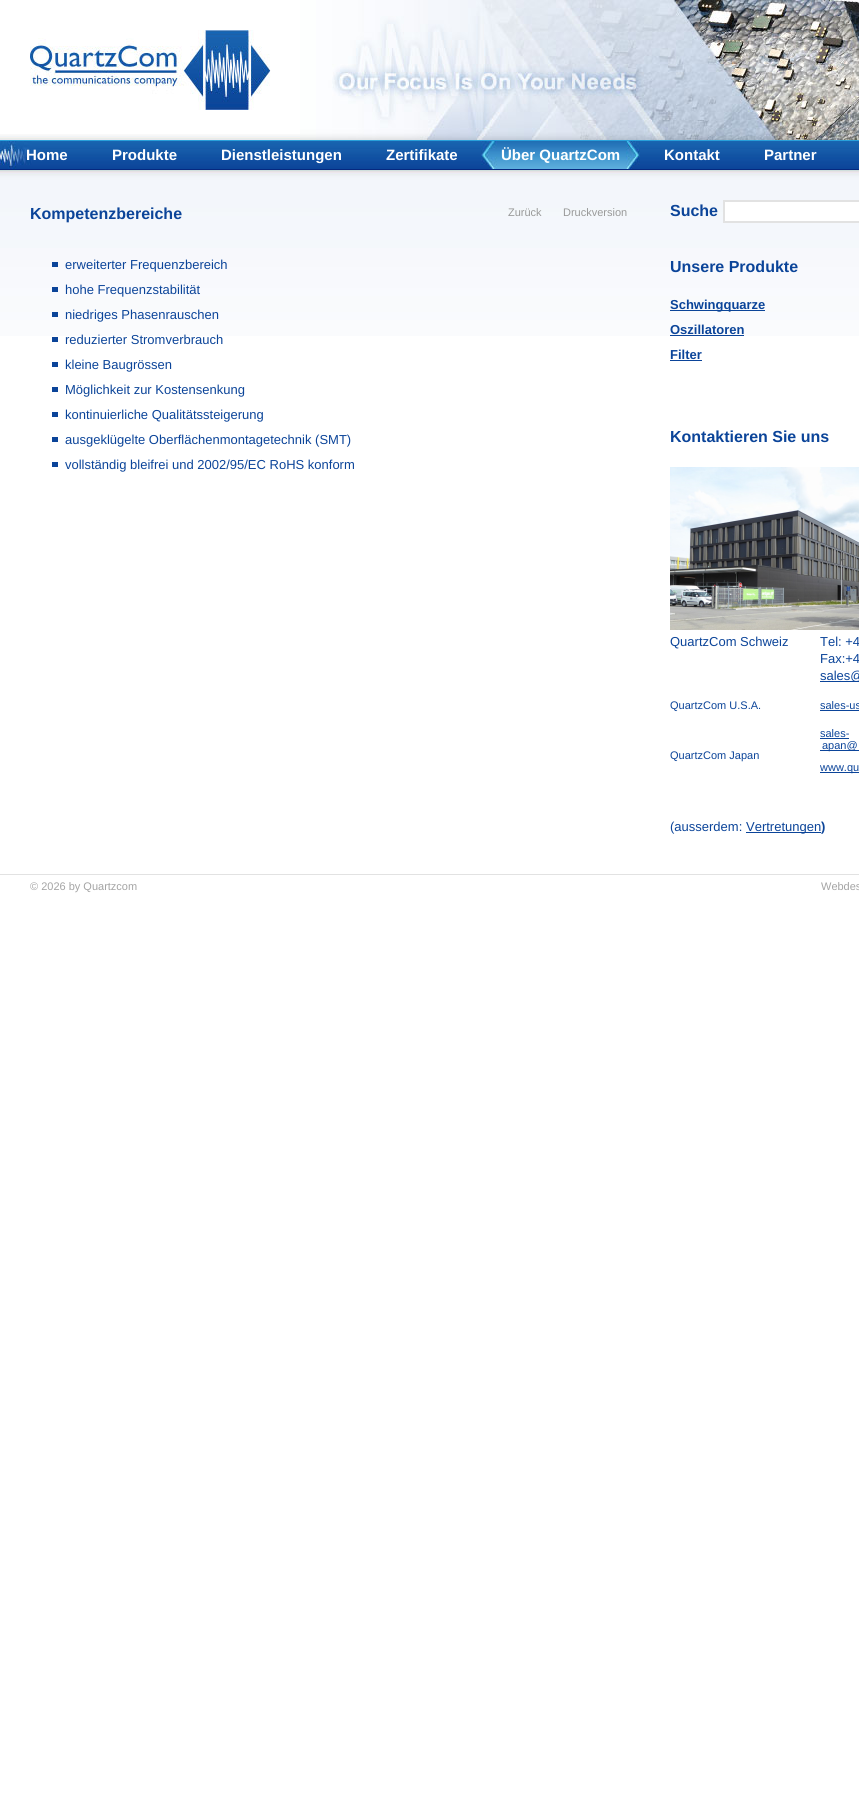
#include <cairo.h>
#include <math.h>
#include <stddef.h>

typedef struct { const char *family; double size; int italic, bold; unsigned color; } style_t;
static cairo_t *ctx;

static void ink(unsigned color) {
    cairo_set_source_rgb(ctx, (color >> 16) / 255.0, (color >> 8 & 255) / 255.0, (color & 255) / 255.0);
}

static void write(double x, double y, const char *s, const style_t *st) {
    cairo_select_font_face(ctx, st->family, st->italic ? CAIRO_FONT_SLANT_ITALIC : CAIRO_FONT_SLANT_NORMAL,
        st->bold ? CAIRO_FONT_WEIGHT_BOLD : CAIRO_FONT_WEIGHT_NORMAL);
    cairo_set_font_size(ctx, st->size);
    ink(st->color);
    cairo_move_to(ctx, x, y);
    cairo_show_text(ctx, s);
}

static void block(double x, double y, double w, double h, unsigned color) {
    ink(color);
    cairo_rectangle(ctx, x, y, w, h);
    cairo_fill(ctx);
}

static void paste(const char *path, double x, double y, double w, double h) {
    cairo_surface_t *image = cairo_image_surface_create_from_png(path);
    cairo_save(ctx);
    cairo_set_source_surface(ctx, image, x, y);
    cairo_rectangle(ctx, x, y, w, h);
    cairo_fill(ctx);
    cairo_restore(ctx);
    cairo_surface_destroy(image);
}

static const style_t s1 = {"Liberation Sans", 15, 0, 1, 0xffffff};
static const style_t s2 = {"Liberation Sans", 16, 0, 1, 0x0b4499};
static const style_t s3 = {"Liberation Sans", 11, 0, 0, 0x999999};
static const style_t s4 = {"Liberation Sans", 13, 0, 0, 0x0b4499};
static const style_t s5 = {"Liberation Sans", 13, 0, 1, 0x0b4499};
static const style_t s6 = {"Liberation Sans", 11, 0, 0, 0x0b4499};
static const style_t s7 = {"Liberation Sans", 11, 0, 0, 0xa4a4a4};

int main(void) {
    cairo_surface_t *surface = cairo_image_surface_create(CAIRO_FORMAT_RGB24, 859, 1810);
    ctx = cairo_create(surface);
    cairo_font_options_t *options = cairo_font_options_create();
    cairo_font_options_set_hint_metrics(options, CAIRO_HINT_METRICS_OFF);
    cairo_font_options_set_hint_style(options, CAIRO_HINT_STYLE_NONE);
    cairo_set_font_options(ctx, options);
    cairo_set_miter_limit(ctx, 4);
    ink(0xffffff);
    cairo_paint(ctx);
    paste("pic1.png", 0, 134, 859, 202);
    paste("pic2.png", 300, 0, 559, 140);
    paste("pic3.png", 30, 30, 241, 80);
    paste("pic4.png", 0, 141, 859, 28);
    write(26, 160, "Home", &s1);
    write(112, 160, "Produkte", &s1);
    write(221, 160, "Dienstleistungen", &s1);
    write(386, 160, "Zertifikate", &s1);
    paste("pic5.png", 626, 141, 14, 28);
    paste("pic6.png", 481, 141, 145, 28);
    write(501, 160, "Über QuartzCom", &s1);
    write(664, 160, "Kontakt", &s1);
    write(764, 160, "Partner", &s1);
    write(30, 219, "Kompetenzbereiche", &s2);
    write(508, 216, "Zurück", &s3);
    write(563, 216, "Druckversion", &s3);
    block(52, 262, 6, 5, 0x0b4499);
    write(65, 269, "erweiterter Frequenzbereich", &s4);
    block(52, 287, 6, 5, 0x0b4499);
    write(65, 294, "hohe Frequenzstabilität", &s4);
    block(52, 312, 6, 5, 0x0b4499);
    write(65, 319, "niedriges Phasenrauschen", &s4);
    block(52, 337, 6, 5, 0x0b4499);
    write(65, 344, "reduzierter Stromverbrauch", &s4);
    block(52, 362, 6, 5, 0x0b4499);
    write(65, 369, "kleine Baugrössen", &s4);
    block(52, 387, 6, 5, 0x0b4499);
    write(65, 394, "Möglichkeit zur Kostensenkung", &s4);
    block(52, 412, 6, 5, 0x0b4499);
    write(65, 419, "kontinuierliche Qualitätssteigerung", &s4);
    block(52, 437, 6, 5, 0x0b4499);
    write(65, 444, "ausgeklügelte Oberflächenmontagetechnik (SMT)", &s4);
    block(52, 462, 6, 5, 0x0b4499);
    write(65, 469, "vollständig bleifrei und 2002/95/EC RoHS konform", &s4);
    write(670, 216, "Suche", &s2);
    ink(0xffffff);
    cairo_rectangle(ctx, 724, 201, 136, 21);
    cairo_fill_preserve(ctx);
    ink(0xe2e2e2);
    cairo_stroke(ctx);
    write(670, 272, "Unsere Produkte", &s2);
    block(670, 310, 95, 1, 0x0b4499);
    write(670, 309, "Schwingquarze", &s5);
    write(670, 334, "Oszillatoren", &s5);
    block(670, 335, 74, 1, 0x0b4499);
    write(670, 359, "Filter", &s5);
    block(670, 360, 32, 1, 0x0b4499);
    write(670, 442, "Kontaktieren Sie uns", &s2);
    paste("pic7.png", 670, 467, 189, 163);
    write(670, 646, "QuartzCom Schweiz", &s4);
    write(820, 646, "Tel: +4", &s4);
    write(820, 663, "Fax:+4", &s4);
    block(820, 681, 39, 1, 0x0b4499);
    write(820, 680, "sales@", &s4);
    write(670, 709, "QuartzCom U.S.A.", &s6);
    write(820, 709, "sales-us", &s6);
    block(820, 710, 39, 1, 0x0b4499);
    write(670, 759, "QuartzCom Japan", &s6);
    write(820, 737, "sales-", &s6);
    block(820, 738, 29, 1, 0x0b4499);
    block(820, 750, 39, 1, 0x0b4499);
    write(822, 749, "apan@", &s6);
    block(820, 772, 39, 1, 0x0b4499);
    write(820, 771, "www.qu", &s6);
    write(670, 831, "(ausserdem:", &s4);
    block(746, 832, 75, 1, 0x0b4499);
    write(746, 831, "Vertretungen", &s4);
    write(821, 831, ")", &s5);
    block(0, 874, 859, 1, 0xe2e2e2);
    write(30, 890, "© 2026 by Quartzcom", &s7);
    write(821, 890, "Webdes", &s7);
    cairo_surface_write_to_png(surface, "screenshot.png");
    cairo_font_options_destroy(options);
    cairo_destroy(ctx);
    cairo_surface_destroy(surface);
    return 0;
}
